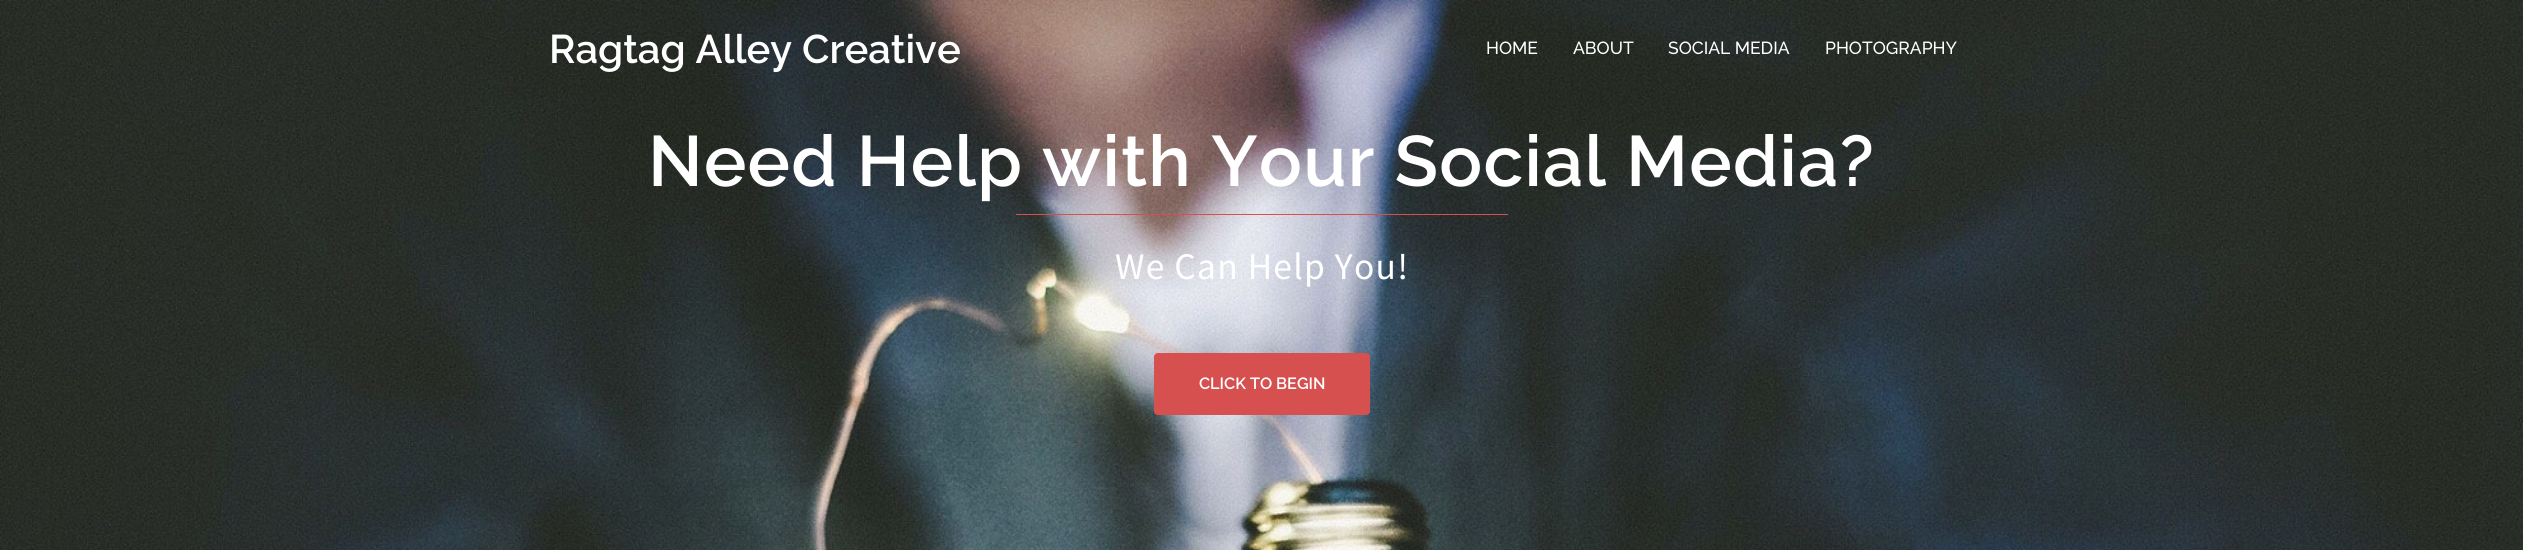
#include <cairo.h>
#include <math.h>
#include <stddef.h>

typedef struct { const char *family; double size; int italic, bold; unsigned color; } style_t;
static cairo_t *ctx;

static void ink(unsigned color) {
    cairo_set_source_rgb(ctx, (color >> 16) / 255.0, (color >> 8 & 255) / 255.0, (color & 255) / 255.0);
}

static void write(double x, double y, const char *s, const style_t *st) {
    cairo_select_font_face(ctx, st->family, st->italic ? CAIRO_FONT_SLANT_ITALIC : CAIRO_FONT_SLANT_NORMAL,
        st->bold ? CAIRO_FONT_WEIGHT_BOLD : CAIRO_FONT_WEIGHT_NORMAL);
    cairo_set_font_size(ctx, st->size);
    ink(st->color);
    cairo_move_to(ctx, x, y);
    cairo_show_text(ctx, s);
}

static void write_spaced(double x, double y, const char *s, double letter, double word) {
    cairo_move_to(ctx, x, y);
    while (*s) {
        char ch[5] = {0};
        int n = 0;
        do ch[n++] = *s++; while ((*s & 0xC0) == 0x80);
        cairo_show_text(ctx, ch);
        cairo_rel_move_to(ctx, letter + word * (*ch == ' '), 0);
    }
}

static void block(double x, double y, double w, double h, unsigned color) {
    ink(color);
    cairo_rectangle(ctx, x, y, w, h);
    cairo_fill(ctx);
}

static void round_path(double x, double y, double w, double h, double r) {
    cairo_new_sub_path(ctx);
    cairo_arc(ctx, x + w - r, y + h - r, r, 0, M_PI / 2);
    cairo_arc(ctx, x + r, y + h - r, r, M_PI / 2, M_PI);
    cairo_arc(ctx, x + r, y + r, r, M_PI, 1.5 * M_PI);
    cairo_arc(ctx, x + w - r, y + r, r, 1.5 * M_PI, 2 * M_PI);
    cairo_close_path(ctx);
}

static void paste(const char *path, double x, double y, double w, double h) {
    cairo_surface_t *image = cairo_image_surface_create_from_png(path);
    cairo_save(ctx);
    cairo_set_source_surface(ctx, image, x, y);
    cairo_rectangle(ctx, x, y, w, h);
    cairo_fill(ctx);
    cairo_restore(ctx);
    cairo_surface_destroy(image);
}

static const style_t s1 = {"Raleway SemiBold", 40, 0, 0, 0xffffff};
static const style_t s2 = {"Raleway Medium", 17.5, 0, 0, 0xffffff};
static const style_t s3 = {"Raleway SemiBold", 16.25, 0, 0, 0xffffff};

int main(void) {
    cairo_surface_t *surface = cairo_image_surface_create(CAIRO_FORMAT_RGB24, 2523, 550);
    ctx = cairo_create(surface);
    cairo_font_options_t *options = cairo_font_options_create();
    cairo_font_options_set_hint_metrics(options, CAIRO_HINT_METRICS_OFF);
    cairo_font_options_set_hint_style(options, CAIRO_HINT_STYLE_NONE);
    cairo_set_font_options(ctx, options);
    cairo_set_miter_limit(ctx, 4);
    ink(0xffffff);
    cairo_paint(ctx);
    paste("pic1.png", 0, 0, 2523, 550);
    write(549, 63, "Ragtag Alley Creative", &s1);
    write(1486, 54, "HOME", &s2);
    write(1573, 54, "ABOUT", &s2);
    write(1668, 54, "SOCIAL MEDIA", &s2);
    write(1825, 54, "PHOTOGRAPHY", &s2);
    cairo_select_font_face(ctx, "Raleway SemiBold", CAIRO_FONT_SLANT_NORMAL, CAIRO_FONT_WEIGHT_NORMAL);
    cairo_set_font_size(ctx, 71.25);
    write_spaced(648, 186, "Need Help with Your Social Media?", 1.25, 0);
    block(1016, 214, 492, 1, 0xd65050);
    cairo_select_font_face(ctx, "Source Sans Pro", CAIRO_FONT_SLANT_NORMAL, CAIRO_FONT_WEIGHT_NORMAL);
    cairo_set_font_size(ctx, 37.5);
    ink(0xffffff);
    write_spaced(1115, 279, "We Can Help You!", 1.25, 0);
    ink(0xd65050);
    round_path(1154.5, 353.5, 215, 61, 3.5);
    cairo_fill_preserve(ctx);
    cairo_set_line_width(ctx, 1);
    cairo_stroke(ctx);
    write(1199, 389, "CLICK TO BEGIN", &s3);
    cairo_surface_write_to_png(surface, "screenshot.png");
    cairo_font_options_destroy(options);
    cairo_destroy(ctx);
    cairo_surface_destroy(surface);
    return 0;
}
